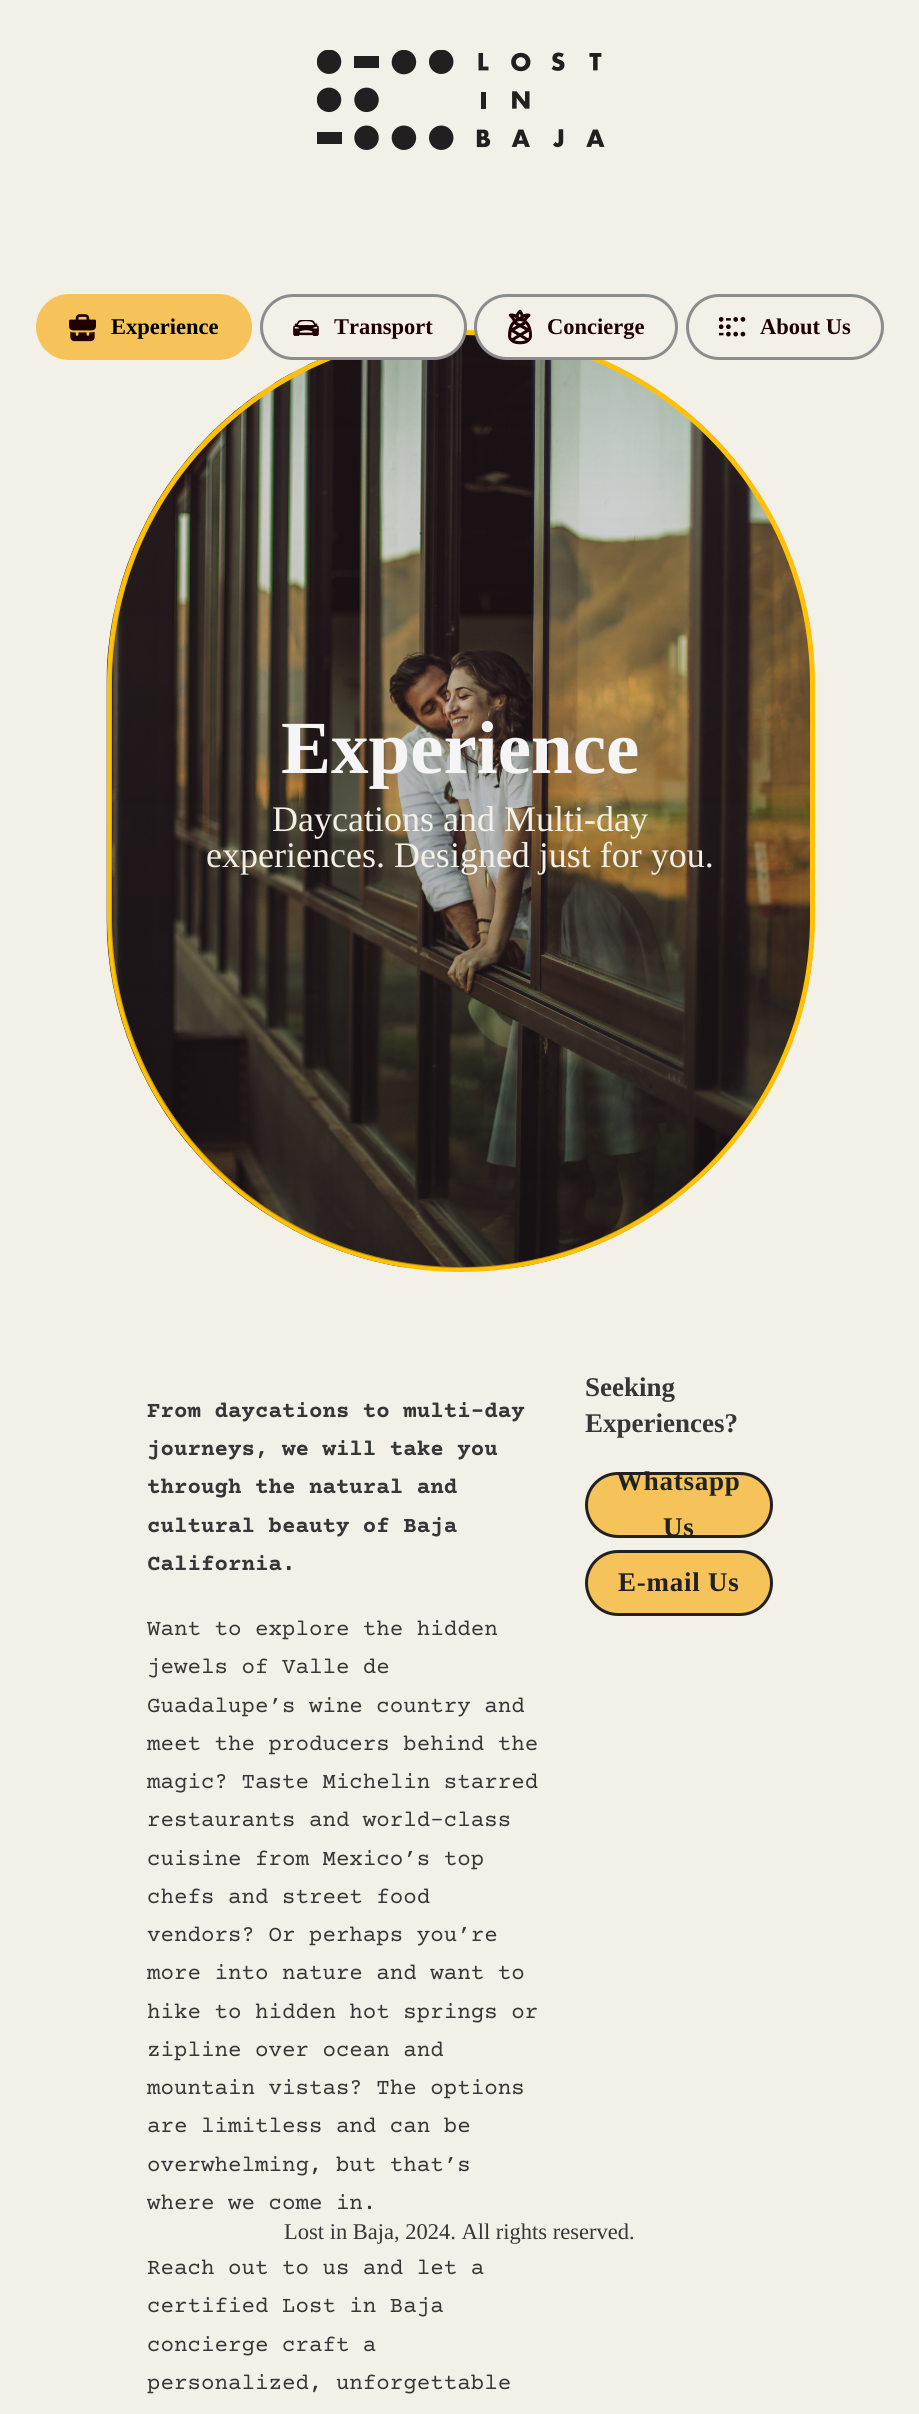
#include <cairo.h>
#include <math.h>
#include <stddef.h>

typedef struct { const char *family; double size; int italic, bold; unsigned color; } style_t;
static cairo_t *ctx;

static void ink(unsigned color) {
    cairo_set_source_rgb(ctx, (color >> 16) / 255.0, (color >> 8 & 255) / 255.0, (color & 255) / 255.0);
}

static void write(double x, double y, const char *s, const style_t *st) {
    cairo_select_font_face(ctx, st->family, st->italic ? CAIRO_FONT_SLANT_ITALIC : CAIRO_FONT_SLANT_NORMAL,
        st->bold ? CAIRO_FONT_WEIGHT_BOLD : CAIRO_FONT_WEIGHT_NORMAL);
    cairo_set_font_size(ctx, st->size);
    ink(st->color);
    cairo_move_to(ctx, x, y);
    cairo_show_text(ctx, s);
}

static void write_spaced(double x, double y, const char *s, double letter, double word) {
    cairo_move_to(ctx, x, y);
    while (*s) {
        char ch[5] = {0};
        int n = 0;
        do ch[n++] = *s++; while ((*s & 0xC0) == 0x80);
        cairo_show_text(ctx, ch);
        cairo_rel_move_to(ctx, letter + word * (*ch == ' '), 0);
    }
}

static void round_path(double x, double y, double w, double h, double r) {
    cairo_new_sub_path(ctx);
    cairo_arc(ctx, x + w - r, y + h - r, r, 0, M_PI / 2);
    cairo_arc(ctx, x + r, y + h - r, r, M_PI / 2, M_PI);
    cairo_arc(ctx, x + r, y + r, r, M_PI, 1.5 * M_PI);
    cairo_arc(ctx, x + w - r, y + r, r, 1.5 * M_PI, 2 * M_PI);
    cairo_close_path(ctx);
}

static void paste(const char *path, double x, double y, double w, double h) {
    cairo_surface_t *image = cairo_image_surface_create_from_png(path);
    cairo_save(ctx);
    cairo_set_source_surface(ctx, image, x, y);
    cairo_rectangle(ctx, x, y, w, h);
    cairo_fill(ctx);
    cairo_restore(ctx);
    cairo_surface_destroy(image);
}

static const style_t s1 = {"Liberation Serif", 22.5, 0, 1, 0x000000};
static const style_t s2 = {"Liberation Serif", 22.5, 0, 1, 0x1f0000};
static const style_t s3 = {"Liberation Serif", 75, 0, 1, 0xf5f5f5};
static const style_t s4 = {"Liberation Serif", 36, 0, 0, 0xf3f0e7};
static const style_t s5 = {"Courier Prime", 22.5, 0, 1, 0x363636};
static const style_t s6 = {"Courier Prime", 22.5, 0, 0, 0x363636};
static const style_t s7 = {"Liberation Serif", 27, 0, 1, 0x363636};
static const style_t s8 = {"Liberation Serif", 22.5, 0, 0, 0x363636};

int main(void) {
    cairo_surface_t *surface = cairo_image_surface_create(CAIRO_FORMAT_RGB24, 919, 2414);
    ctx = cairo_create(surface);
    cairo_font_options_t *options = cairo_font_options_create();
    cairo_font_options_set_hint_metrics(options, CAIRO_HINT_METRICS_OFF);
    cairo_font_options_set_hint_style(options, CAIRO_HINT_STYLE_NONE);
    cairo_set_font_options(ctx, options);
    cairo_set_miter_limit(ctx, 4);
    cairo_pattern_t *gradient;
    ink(0xf3f0e7);
    cairo_paint(ctx);
    paste("pic1.png", 317, 50, 288, 100);
    paste("pic6.png", 106, 335, 709, 933);
    round_path(109.5, 332.5, 703, 937, 351.5);
    ink(0xffc107);
    cairo_set_line_width(ctx, 5);
    cairo_stroke(ctx);
    gradient = cairo_pattern_create_linear(460, 334, 461, 1268);
    cairo_pattern_add_color_stop_rgba(gradient, 0, 0.059, 0.059, 0.059, 0);
    cairo_pattern_add_color_stop_rgba(gradient, 1, 0.059, 0.059, 0.059, 0.33);
    cairo_set_source(ctx, gradient);
    cairo_pattern_destroy(gradient);
    round_path(111, 335, 699, 933, 349.5);
    cairo_fill(ctx);
    ink(0xf5c359);
    round_path(37.5, 295.5, 213, 63, 31.5);
    cairo_fill_preserve(ctx);
    cairo_set_line_width(ctx, 3);
    cairo_stroke(ctx);
    paste("pic2.png", 69, 314, 27, 28);
    write(111, 334, "Experience", &s1);
    ink(0xf3f0e7);
    round_path(261.5, 295.5, 204, 63, 31.5);
    cairo_fill_preserve(ctx);
    ink(0x8c8c8c);
    cairo_stroke(ctx);
    paste("pic3.png", 293, 320, 26, 16);
    write(334, 334, "Transport", &s2);
    ink(0xf3f0e7);
    round_path(475.5, 295.5, 201, 63, 31.5);
    cairo_fill_preserve(ctx);
    ink(0x8c8c8c);
    cairo_stroke(ctx);
    paste("pic4.png", 508, 309, 24, 36);
    write(547, 334, "Concierge", &s2);
    round_path(687.5, 295.5, 195, 63, 31.5);
    ink(0x8c8c8c);
    cairo_stroke(ctx);
    paste("pic5.png", 719, 317, 27, 20);
    write(760, 334, "About Us", &s2);
    write(281, 773, "Experience", &s3);
    write(272, 831, "Daycations and Multi-day", &s4);
    write(206, 867, "experiences. Designed just for you.", &s4);
    write(147, 1417, "From daycations to multi-day", &s5);
    write(147, 1455, "journeys, we will take you", &s5);
    write(147, 1493, "through the natural and", &s5);
    write(147, 1532, "cultural beauty of Baja", &s5);
    write(147, 1570, "California.", &s5);
    write(147, 1635, "Want to explore the hidden", &s6);
    write(147, 1673, "jewels of Valle de", &s6);
    write(147, 1712, "Guadalupe’s wine country and", &s6);
    write(147, 1750, "meet the producers behind the", &s6);
    write(147, 1788, "magic? Taste Michelin starred", &s6);
    write(147, 1826, "restaurants and world-class", &s6);
    write(147, 1865, "cuisine from Mexico’s top", &s6);
    write(147, 1903, "chefs and street food", &s6);
    write(147, 1941, "vendors? Or perhaps you’re", &s6);
    write(147, 1979, "more into nature and want to", &s6);
    write(147, 2018, "hike to hidden hot springs or", &s6);
    write(147, 2056, "zipline over ocean and", &s6);
    write(147, 2094, "mountain vistas? The options", &s6);
    write(147, 2132, "are limitless and can be", &s6);
    write(147, 2171, "overwhelming, but that’s", &s6);
    write(147, 2209, "where we come in.", &s6);
    write(147, 2274, "Reach out to us and let a", &s6);
    write(147, 2312, "certified Lost in Baja", &s6);
    write(147, 2351, "concierge craft a", &s6);
    write(147, 2389, "personalized, unforgettable", &s6);
    write(585, 1396, "Seeking", &s7);
    write(585, 1432, "Experiences?", &s7);
    ink(0xf5c359);
    round_path(586.5, 1473.5, 185, 63, 31.5);
    cairo_fill_preserve(ctx);
    ink(0x212121);
    cairo_stroke(ctx);
    write_spaced(616, 1490, "Whatsapp", 0.75, 0);
    write_spaced(663, 1536, "Us", 0.75, 0);
    ink(0xf5c359);
    round_path(586.5, 1551.5, 185, 63, 31.5);
    cairo_fill_preserve(ctx);
    ink(0x212121);
    cairo_stroke(ctx);
    write_spaced(618, 1591, "E-mail Us", 0.75, 0);
    write(284, 2239, "Lost in Baja, 2024. All rights reserved.", &s8);
    cairo_surface_write_to_png(surface, "screenshot.png");
    cairo_font_options_destroy(options);
    cairo_destroy(ctx);
    cairo_surface_destroy(surface);
    return 0;
}
